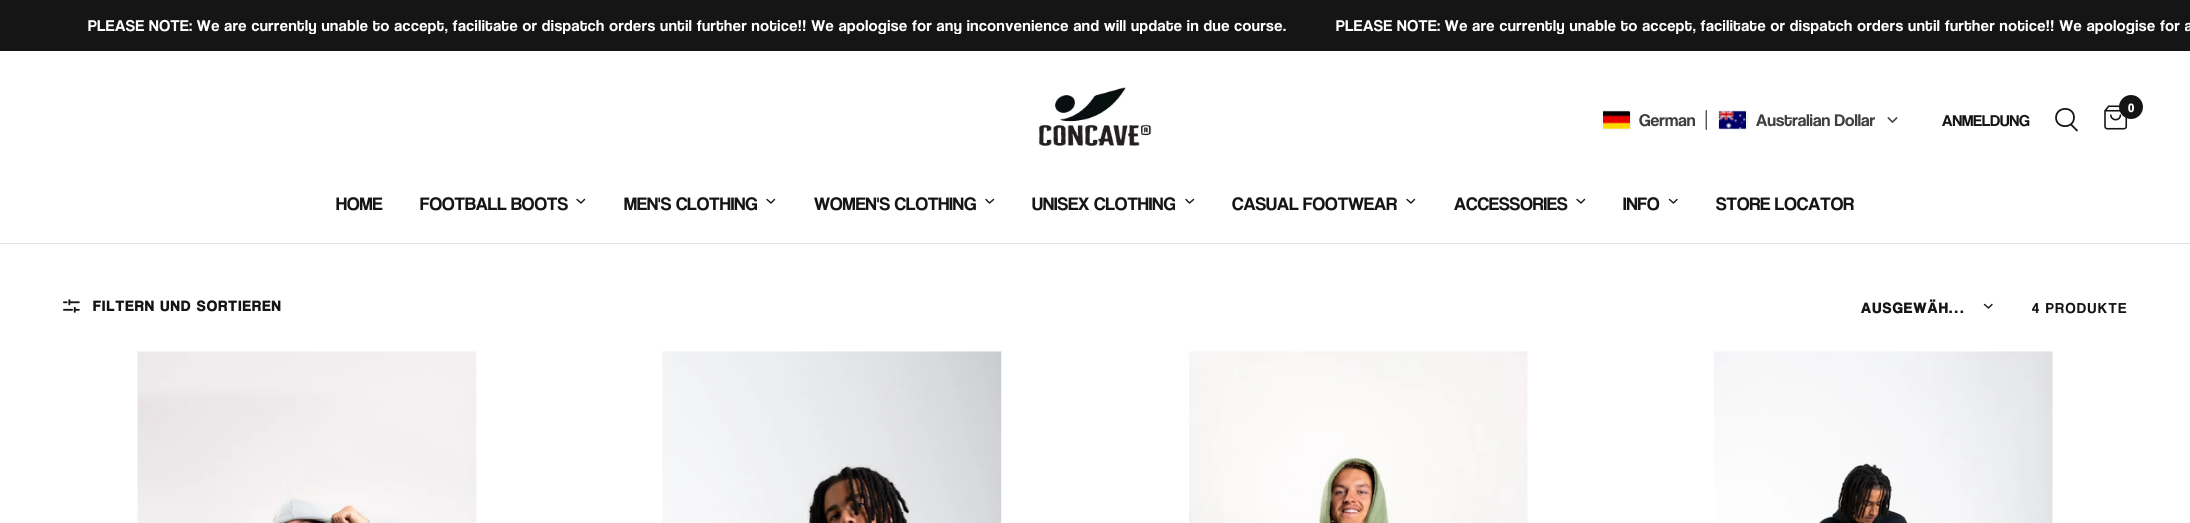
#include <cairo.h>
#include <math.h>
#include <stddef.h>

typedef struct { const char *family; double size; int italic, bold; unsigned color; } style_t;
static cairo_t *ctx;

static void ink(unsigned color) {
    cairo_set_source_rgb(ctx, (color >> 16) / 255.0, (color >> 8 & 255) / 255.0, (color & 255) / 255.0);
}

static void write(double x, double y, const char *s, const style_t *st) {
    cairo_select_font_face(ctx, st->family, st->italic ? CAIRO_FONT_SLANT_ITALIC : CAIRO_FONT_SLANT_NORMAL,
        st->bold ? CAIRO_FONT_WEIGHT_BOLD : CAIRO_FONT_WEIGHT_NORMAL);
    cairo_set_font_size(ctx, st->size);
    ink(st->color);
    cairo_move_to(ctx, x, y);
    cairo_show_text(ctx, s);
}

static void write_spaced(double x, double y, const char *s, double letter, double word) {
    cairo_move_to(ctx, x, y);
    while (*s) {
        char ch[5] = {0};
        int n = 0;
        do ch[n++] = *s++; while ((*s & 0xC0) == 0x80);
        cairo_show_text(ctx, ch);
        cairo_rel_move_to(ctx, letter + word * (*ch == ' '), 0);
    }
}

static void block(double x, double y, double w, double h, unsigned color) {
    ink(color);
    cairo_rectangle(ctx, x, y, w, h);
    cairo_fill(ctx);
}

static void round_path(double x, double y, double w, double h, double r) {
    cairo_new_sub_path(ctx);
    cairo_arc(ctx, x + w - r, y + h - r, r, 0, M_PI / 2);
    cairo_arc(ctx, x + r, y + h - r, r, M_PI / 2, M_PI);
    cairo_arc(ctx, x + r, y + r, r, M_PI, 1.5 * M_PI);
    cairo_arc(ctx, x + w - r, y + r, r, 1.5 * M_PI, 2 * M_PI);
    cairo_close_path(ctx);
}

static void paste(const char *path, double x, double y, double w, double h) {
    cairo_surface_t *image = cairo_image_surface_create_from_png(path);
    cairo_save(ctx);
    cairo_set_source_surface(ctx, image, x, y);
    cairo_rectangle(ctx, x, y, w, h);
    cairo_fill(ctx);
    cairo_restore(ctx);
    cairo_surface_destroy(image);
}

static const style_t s1 = {"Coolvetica", 17.5, 0, 0, 0x404040};
static const style_t s2 = {"Coolvetica", 16.25, 0, 0, 0x151515};
static const style_t s3 = {"Coolvetica", 12, 0, 1, 0xffffff};
static const style_t s4 = {"Coolvetica", 18.75, 0, 0, 0x151515};

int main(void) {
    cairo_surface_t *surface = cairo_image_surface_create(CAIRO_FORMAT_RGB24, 2190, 523);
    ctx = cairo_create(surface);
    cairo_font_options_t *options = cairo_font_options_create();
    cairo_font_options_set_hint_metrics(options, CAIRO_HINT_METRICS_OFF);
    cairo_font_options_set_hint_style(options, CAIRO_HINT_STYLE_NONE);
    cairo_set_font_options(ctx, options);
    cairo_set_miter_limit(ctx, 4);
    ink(0xffffff);
    cairo_paint(ctx);
    block(0, 0, 2190, 51, 0x151515);
    cairo_save(ctx);
    cairo_rectangle(ctx, 0, 18, 2190, 16);
    cairo_clip(ctx);
    cairo_select_font_face(ctx, "Coolvetica", CAIRO_FONT_SLANT_NORMAL, CAIRO_FONT_WEIGHT_NORMAL);
    cairo_set_font_size(ctx, 16.25);
    ink(0xffffff);
    write_spaced(88, 31, "PLEASE NOTE: We are currently unable to accept, facilitate or dispatch orders until further notice!! We apologise for any inconvenience and will update in due course.", 0.49, 0);
    write_spaced(1336, 31, "PLEASE NOTE: We are currently unable to accept, facilitate or dispatch orders until further notice!! We apologise for a", 0.49, 0);
    cairo_restore(ctx);
    block(0, 243, 2190, 1, 0xe2e2e2);
    paste("pic1.png", 1038, 87, 114, 59);
    round_path(1601.5, 110.5, 29, 19, 2);
    ink(0xf0f1f2);
    cairo_set_line_width(ctx, 1);
    cairo_stroke(ctx);
    paste("pic2.png", 1603, 111, 27, 18);
    write(1639, 126, "German", &s1);
    paste("pic3.png", 1705, 110, 2, 20);
    round_path(1718.5, 110.5, 29, 19, 2);
    ink(0xf0f1f2);
    cairo_stroke(ctx);
    paste("pic4.png", 1719, 111, 27, 18);
    write(1756, 126, "Australian Dollar", &s1);
    paste("pic5.png", 1887, 117, 11, 6);
    write(1942, 126, "ANMELDUNG", &s2);
    cairo_new_path(ctx);
    cairo_move_to(ctx, 2071, 124.5);
    cairo_line_to(ctx, 2077, 130.5);
    cairo_move_to(ctx, 2074, 117.5);
    cairo_curve_to(ctx, 2074, 129, 2056, 129, 2056, 117.5);
    cairo_curve_to(ctx, 2056.5, 106, 2074, 106, 2074, 117.5);
    cairo_close_path(ctx);
    cairo_set_line_width(ctx, 1.8);
    cairo_set_line_cap(ctx, CAIRO_LINE_CAP_ROUND);
    cairo_set_line_join(ctx, CAIRO_LINE_JOIN_ROUND);
    cairo_stroke(ctx);
    paste("pic6.png", 2104, 105, 24, 25);
    cairo_arc(ctx, 2131, 107, 12, 0, 2 * M_PI);
    cairo_fill(ctx);
    write(2128, 112, "0", &s3);
    write(336, 210, "HOME", &s4);
    write(420, 210, "FOOTBALL BOOTS", &s4);
    cairo_new_path(ctx);
    cairo_move_to(ctx, 584.5, 199.5);
    cairo_line_to(ctx, 581, 203);
    cairo_line_to(ctx, 577, 199.5);
    cairo_set_line_width(ctx, 1.4);
    cairo_stroke(ctx);
    write(624, 210, "MEN'S CLOTHING", &s4);
    cairo_new_path(ctx);
    cairo_move_to(ctx, 774.5, 199.5);
    cairo_line_to(ctx, 771, 203);
    cairo_line_to(ctx, 767, 199.5);
    cairo_stroke(ctx);
    write(814, 210, "WOMEN'S CLOTHING", &s4);
    cairo_new_path(ctx);
    cairo_move_to(ctx, 993.5, 199.5);
    cairo_line_to(ctx, 989.5, 203);
    cairo_line_to(ctx, 986, 199.5);
    cairo_stroke(ctx);
    write(1032, 210, "UNISEX CLOTHING", &s4);
    cairo_new_path(ctx);
    cairo_move_to(ctx, 1193.5, 199.5);
    cairo_line_to(ctx, 1189.5, 203);
    cairo_line_to(ctx, 1186, 199.5);
    cairo_stroke(ctx);
    write(1232, 210, "CASUAL FOOTWEAR", &s4);
    cairo_new_path(ctx);
    cairo_move_to(ctx, 1414.5, 199.5);
    cairo_line_to(ctx, 1411, 203);
    cairo_line_to(ctx, 1407, 199.5);
    cairo_stroke(ctx);
    write(1454, 210, "ACCESSORIES", &s4);
    cairo_new_path(ctx);
    cairo_move_to(ctx, 1584.5, 199.5);
    cairo_line_to(ctx, 1581, 203);
    cairo_line_to(ctx, 1577, 199.5);
    cairo_stroke(ctx);
    write(1623, 210, "INFO", &s4);
    cairo_new_path(ctx);
    cairo_move_to(ctx, 1677, 199.5);
    cairo_line_to(ctx, 1673.5, 203);
    cairo_line_to(ctx, 1669.5, 199.5);
    cairo_stroke(ctx);
    write(1716, 210, "STORE LOCATOR", &s4);
    paste("pic7.png", 63, 299, 17, 14);
    cairo_select_font_face(ctx, "Coolvetica", CAIRO_FONT_SLANT_NORMAL, CAIRO_FONT_WEIGHT_BOLD);
    cairo_set_font_size(ctx, 15);
    write_spaced(93, 311, "FILTERN UND SORTIEREN", 1.5, 0);
    write_spaced(1861, 313, "AUSGEWÄH…", 1.5, 0);
    cairo_new_path(ctx);
    cairo_move_to(ctx, 1992, 304.5);
    cairo_line_to(ctx, 1988.5, 308);
    cairo_line_to(ctx, 1984.5, 304.5);
    cairo_stroke(ctx);
    cairo_select_font_face(ctx, "Coolvetica", CAIRO_FONT_SLANT_NORMAL, CAIRO_FONT_WEIGHT_NORMAL);
    write_spaced(2032, 313, "4 PRODUKTE", 1.5, 0);
    paste("pic8.png", 137, 351, 340, 172);
    paste("pic9.png", 662, 351, 340, 172);
    paste("pic10.png", 1189, 351, 339, 172);
    paste("pic11.png", 1714, 351, 339, 172);
    cairo_surface_write_to_png(surface, "screenshot.png");
    cairo_font_options_destroy(options);
    cairo_destroy(ctx);
    cairo_surface_destroy(surface);
    return 0;
}
